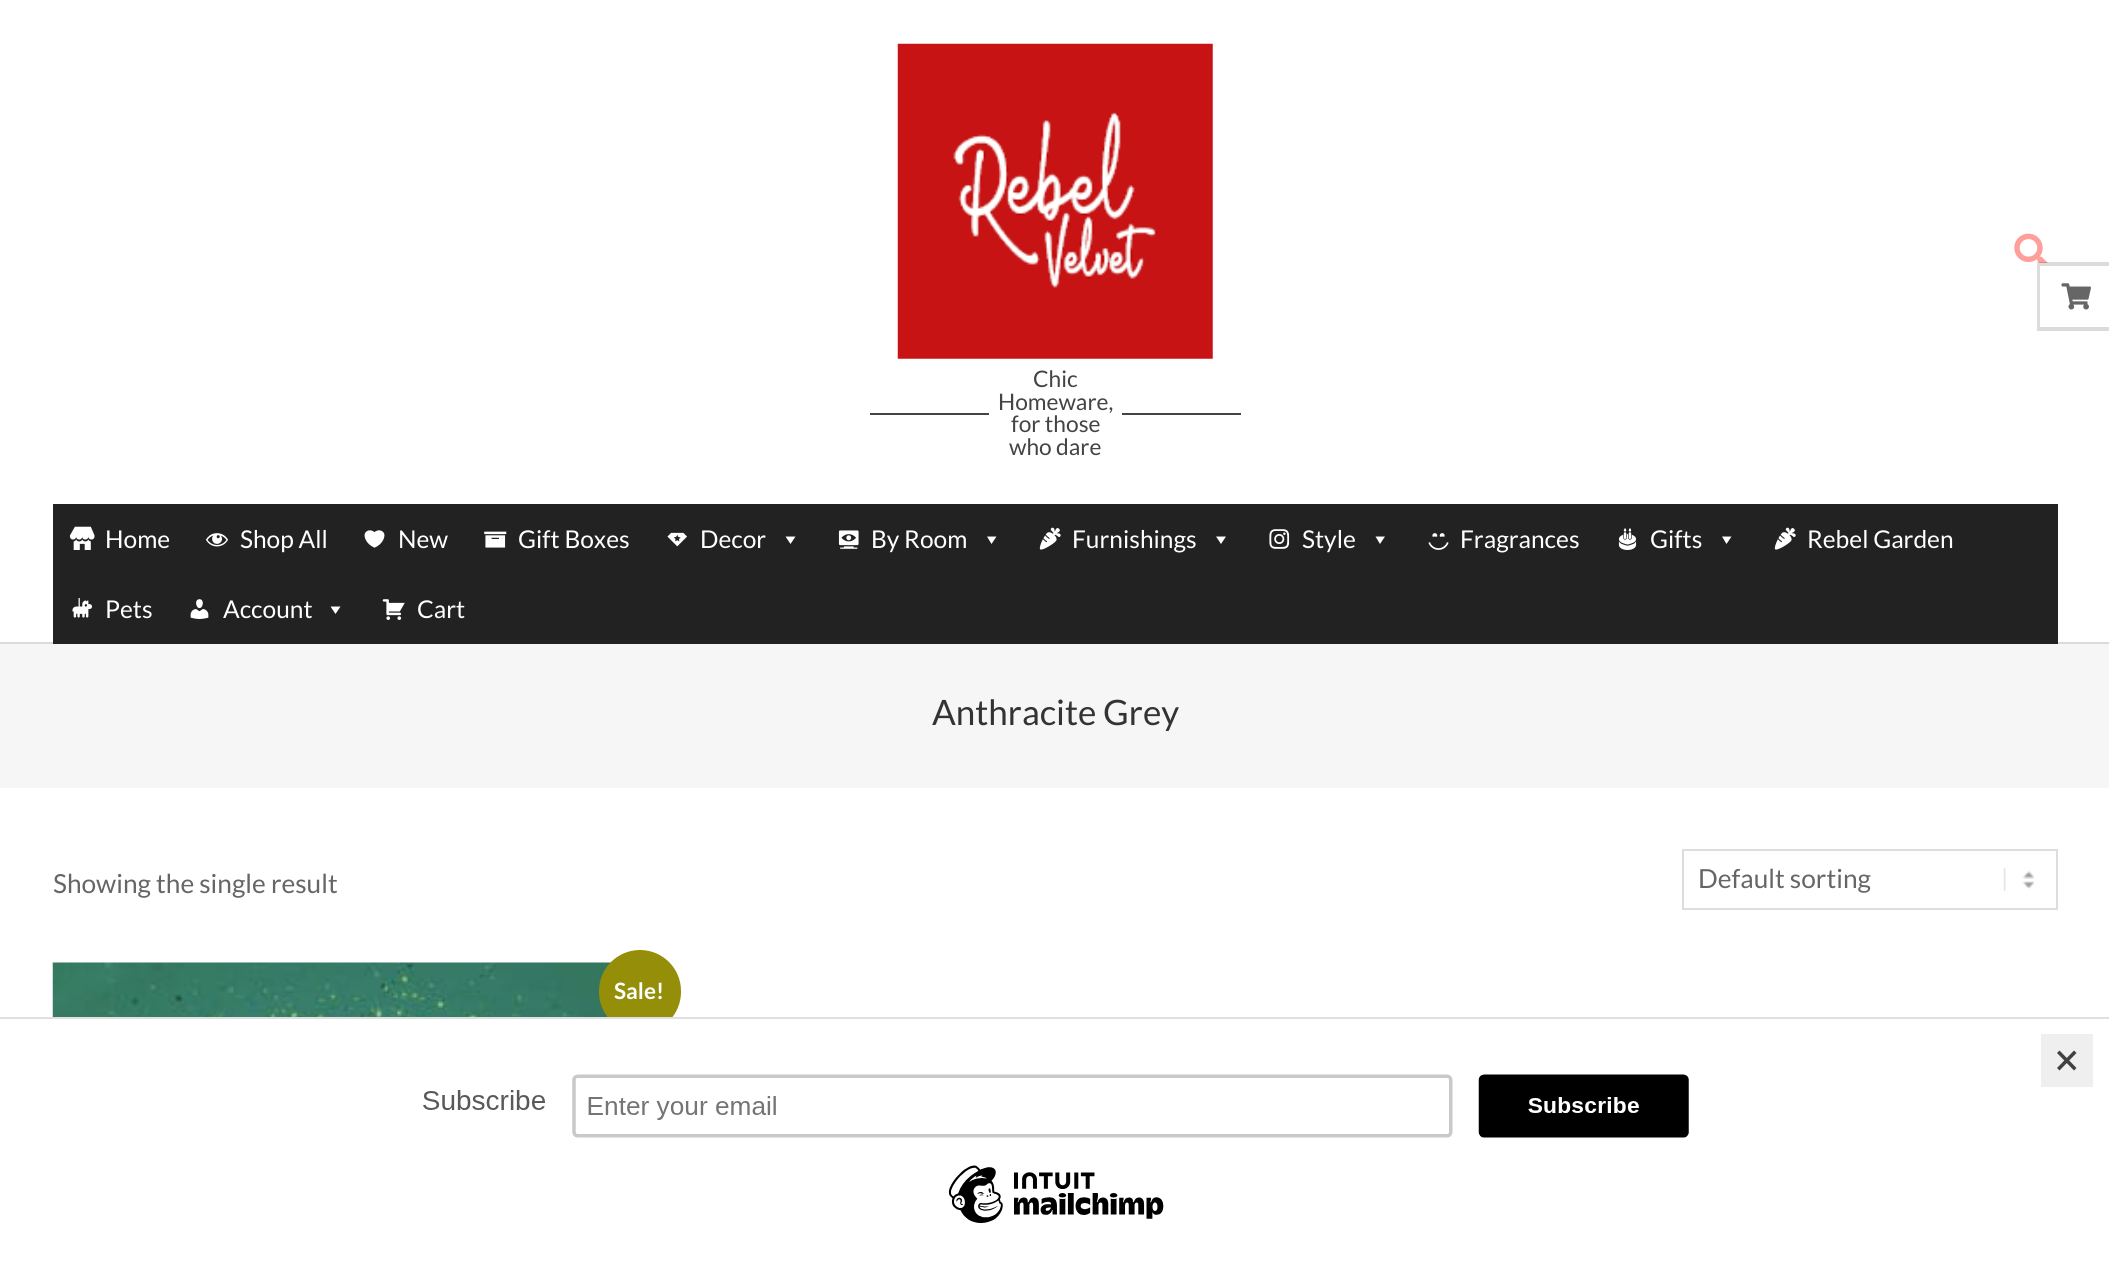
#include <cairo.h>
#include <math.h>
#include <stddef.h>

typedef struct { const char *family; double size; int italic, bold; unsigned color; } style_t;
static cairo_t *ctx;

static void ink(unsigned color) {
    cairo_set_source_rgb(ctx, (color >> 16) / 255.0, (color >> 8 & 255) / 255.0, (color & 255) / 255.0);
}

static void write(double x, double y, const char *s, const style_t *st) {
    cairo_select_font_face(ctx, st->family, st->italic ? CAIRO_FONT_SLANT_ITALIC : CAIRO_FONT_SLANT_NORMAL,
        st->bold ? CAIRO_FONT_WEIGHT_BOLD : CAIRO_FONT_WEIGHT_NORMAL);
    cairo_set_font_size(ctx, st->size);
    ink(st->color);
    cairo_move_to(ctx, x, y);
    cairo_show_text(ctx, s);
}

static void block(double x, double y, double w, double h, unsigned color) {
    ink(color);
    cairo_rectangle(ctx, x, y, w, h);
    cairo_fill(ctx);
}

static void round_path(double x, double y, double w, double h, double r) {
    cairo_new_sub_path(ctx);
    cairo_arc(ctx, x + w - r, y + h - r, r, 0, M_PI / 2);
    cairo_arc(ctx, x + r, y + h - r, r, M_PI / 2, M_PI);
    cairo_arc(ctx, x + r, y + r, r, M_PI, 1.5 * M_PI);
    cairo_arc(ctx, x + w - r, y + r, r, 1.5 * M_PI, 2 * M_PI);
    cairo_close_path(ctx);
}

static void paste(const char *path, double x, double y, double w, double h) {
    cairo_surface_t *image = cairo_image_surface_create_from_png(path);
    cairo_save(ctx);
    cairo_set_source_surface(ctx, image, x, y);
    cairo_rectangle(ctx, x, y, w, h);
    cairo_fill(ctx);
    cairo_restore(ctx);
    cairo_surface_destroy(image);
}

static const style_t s1 = {"Lato", 22.75, 0, 0, 0x444444};
static const style_t s2 = {"Lato", 24.5, 0, 0, 0xffffff};
static const style_t s3 = {"Lato", 35, 0, 0, 0x333333};
static const style_t s4 = {"Lato", 26.25, 0, 0, 0x666666};
static const style_t s5 = {"Lato", 22.5, 0, 1, 0xffffff};

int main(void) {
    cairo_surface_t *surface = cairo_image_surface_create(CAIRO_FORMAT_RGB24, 2109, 1280);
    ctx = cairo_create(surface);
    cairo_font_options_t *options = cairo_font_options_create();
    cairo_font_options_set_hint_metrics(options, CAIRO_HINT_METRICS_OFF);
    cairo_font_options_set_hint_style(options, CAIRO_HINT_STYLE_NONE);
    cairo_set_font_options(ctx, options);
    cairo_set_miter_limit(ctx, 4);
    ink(0xffffff);
    cairo_paint(ctx);
    paste("pic2.png", 2014, 233, 34, 30);
    cairo_set_source_rgba(ctx, 0, 0, 0, 0.14);
    cairo_new_path(ctx);
    cairo_move_to(ctx, 2037, 262);
    cairo_line_to(ctx, 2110, 262);
    cairo_line_to(ctx, 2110, 266);
    cairo_line_to(ctx, 2040, 266);
    cairo_close_path(ctx);
    cairo_fill(ctx);
    ink(0xdbdbdb);
    cairo_new_path(ctx);
    cairo_move_to(ctx, 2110, 331);
    cairo_line_to(ctx, 2037, 331);
    cairo_line_to(ctx, 2040, 327);
    cairo_line_to(ctx, 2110, 327);
    cairo_close_path(ctx);
    cairo_fill(ctx);
    cairo_set_source_rgba(ctx, 0, 0, 0, 0.14);
    cairo_new_path(ctx);
    cairo_move_to(ctx, 2037, 331);
    cairo_line_to(ctx, 2037, 262);
    cairo_line_to(ctx, 2040, 266);
    cairo_line_to(ctx, 2040, 327);
    cairo_close_path(ctx);
    cairo_fill(ctx);
    paste("pic1.png", 2061, 283, 30, 27);
    block(0, 642, 2109, 2, 0xdbdbdb);
    paste("pic3.png", 897, 43, 316, 316);
    write(1033, 387, "Chic", &s1);
    block(870, 413, 119, 2, 0x444444);
    write(998, 410, "Homeware,", &s1);
    block(1122, 413, 119, 2, 0x444444);
    write(1011, 432, "for those", &s1);
    write(1009, 455, "who dare", &s1);
    block(53, 504, 2005, 140, 0x222222);
    paste("pic4.png", 70, 526, 25, 24);
    write(105, 548, "Home", &s2);
    paste("pic5.png", 205, 533, 24, 14);
    write(240, 548, "Shop All", &s2);
    paste("pic6.png", 364, 530, 21, 18);
    write(398, 548, "New", &s2);
    paste("pic7.png", 484, 531, 23, 17);
    write(518, 548, "Gift Boxes", &s2);
    paste("pic8.png", 667, 532, 20, 15);
    write(700, 548, "Decor", &s2);
    cairo_new_path(ctx);
    cairo_move_to(ctx, 795.5, 536.5);
    cairo_line_to(ctx, 790.5, 544);
    cairo_line_to(ctx, 785.5, 536.5);
    cairo_close_path(ctx);
    cairo_fill(ctx);
    paste("pic9.png", 838, 530, 21, 19);
    write(871, 548, "By Room", &s2);
    cairo_new_path(ctx);
    cairo_move_to(ctx, 996.5, 536.5);
    cairo_line_to(ctx, 991.5, 544);
    cairo_line_to(ctx, 987, 536.5);
    cairo_close_path(ctx);
    cairo_fill(ctx);
    paste("pic10.png", 1039, 527, 22, 23);
    write(1072, 548, "Furnishings", &s2);
    cairo_new_path(ctx);
    cairo_move_to(ctx, 1226, 536.5);
    cairo_line_to(ctx, 1221, 544);
    cairo_line_to(ctx, 1216, 536.5);
    cairo_close_path(ctx);
    cairo_fill(ctx);
    paste("pic11.png", 1269, 529, 21, 20);
    write(1302, 548, "Style", &s2);
    cairo_new_path(ctx);
    cairo_move_to(ctx, 1385, 536.5);
    cairo_line_to(ctx, 1380, 544);
    cairo_line_to(ctx, 1375.5, 536.5);
    cairo_close_path(ctx);
    cairo_fill(ctx);
    paste("pic12.png", 1428, 533, 21, 17);
    write(1460, 548, "Fragrances", &s2);
    paste("pic13.png", 1618, 528, 19, 22);
    write(1650, 548, "Gifts", &s2);
    cairo_new_path(ctx);
    cairo_move_to(ctx, 1731.5, 536.5);
    cairo_line_to(ctx, 1726.5, 544);
    cairo_line_to(ctx, 1722, 536.5);
    cairo_close_path(ctx);
    cairo_fill(ctx);
    paste("pic10.png", 1774, 527, 22, 23);
    write(1807, 548, "Rebel Garden", &s2);
    paste("pic14.png", 72, 598, 20, 20);
    write(105, 618, "Pets", &s2);
    paste("pic15.png", 190, 599, 19, 20);
    write(223, 618, "Account", &s2);
    cairo_new_path(ctx);
    cairo_move_to(ctx, 340.5, 606.5);
    cairo_line_to(ctx, 335.5, 614);
    cairo_line_to(ctx, 330.5, 606.5);
    cairo_close_path(ctx);
    cairo_fill(ctx);
    paste("pic16.png", 382, 599, 23, 21);
    write(417, 618, "Cart", &s2);
    block(0, 644, 2109, 144, 0xf6f6f6);
    write(932, 725, "Anthracite Grey", &s3);
    write(53, 893, "Showing the single result", &s4);
    paste("pic17.png", 2003, 868, 32, 23);
    cairo_rectangle(ctx, 1683, 850, 374, 59);
    ink(0xdddddd);
    cairo_stroke(ctx);
    write(1698, 888, "Default sorting", &s4);
    paste("pic18.png", 52, 962, 559, 55);
    ink(0x958e09);
    round_path(599, 950, 82, 83, 41);
    cairo_fill(ctx);
    write(614, 999, "Sale!", &s5);
    block(609, 1019, 62, 14, 0xffffff);
    block(0, 1017, 2109, 2, 0xe0e0e0);
    paste("pic19.png", 423, 1074, 1266, 149);
    block(2041, 1034, 52, 53, 0xefefef);
    ink(0x414141);
    cairo_new_path(ctx);
    cairo_move_to(ctx, 2074, 1050.5);
    cairo_line_to(ctx, 2076.5, 1053);
    cairo_line_to(ctx, 2059.5, 1070.5);
    cairo_line_to(ctx, 2057, 1068);
    cairo_close_path(ctx);
    cairo_fill(ctx);
    cairo_new_path(ctx);
    cairo_move_to(ctx, 2057, 1053);
    cairo_line_to(ctx, 2059.5, 1050.5);
    cairo_line_to(ctx, 2076.5, 1068);
    cairo_line_to(ctx, 2074, 1070.5);
    cairo_close_path(ctx);
    cairo_fill(ctx);
    cairo_surface_write_to_png(surface, "screenshot.png");
    cairo_font_options_destroy(options);
    cairo_destroy(ctx);
    cairo_surface_destroy(surface);
    return 0;
}
